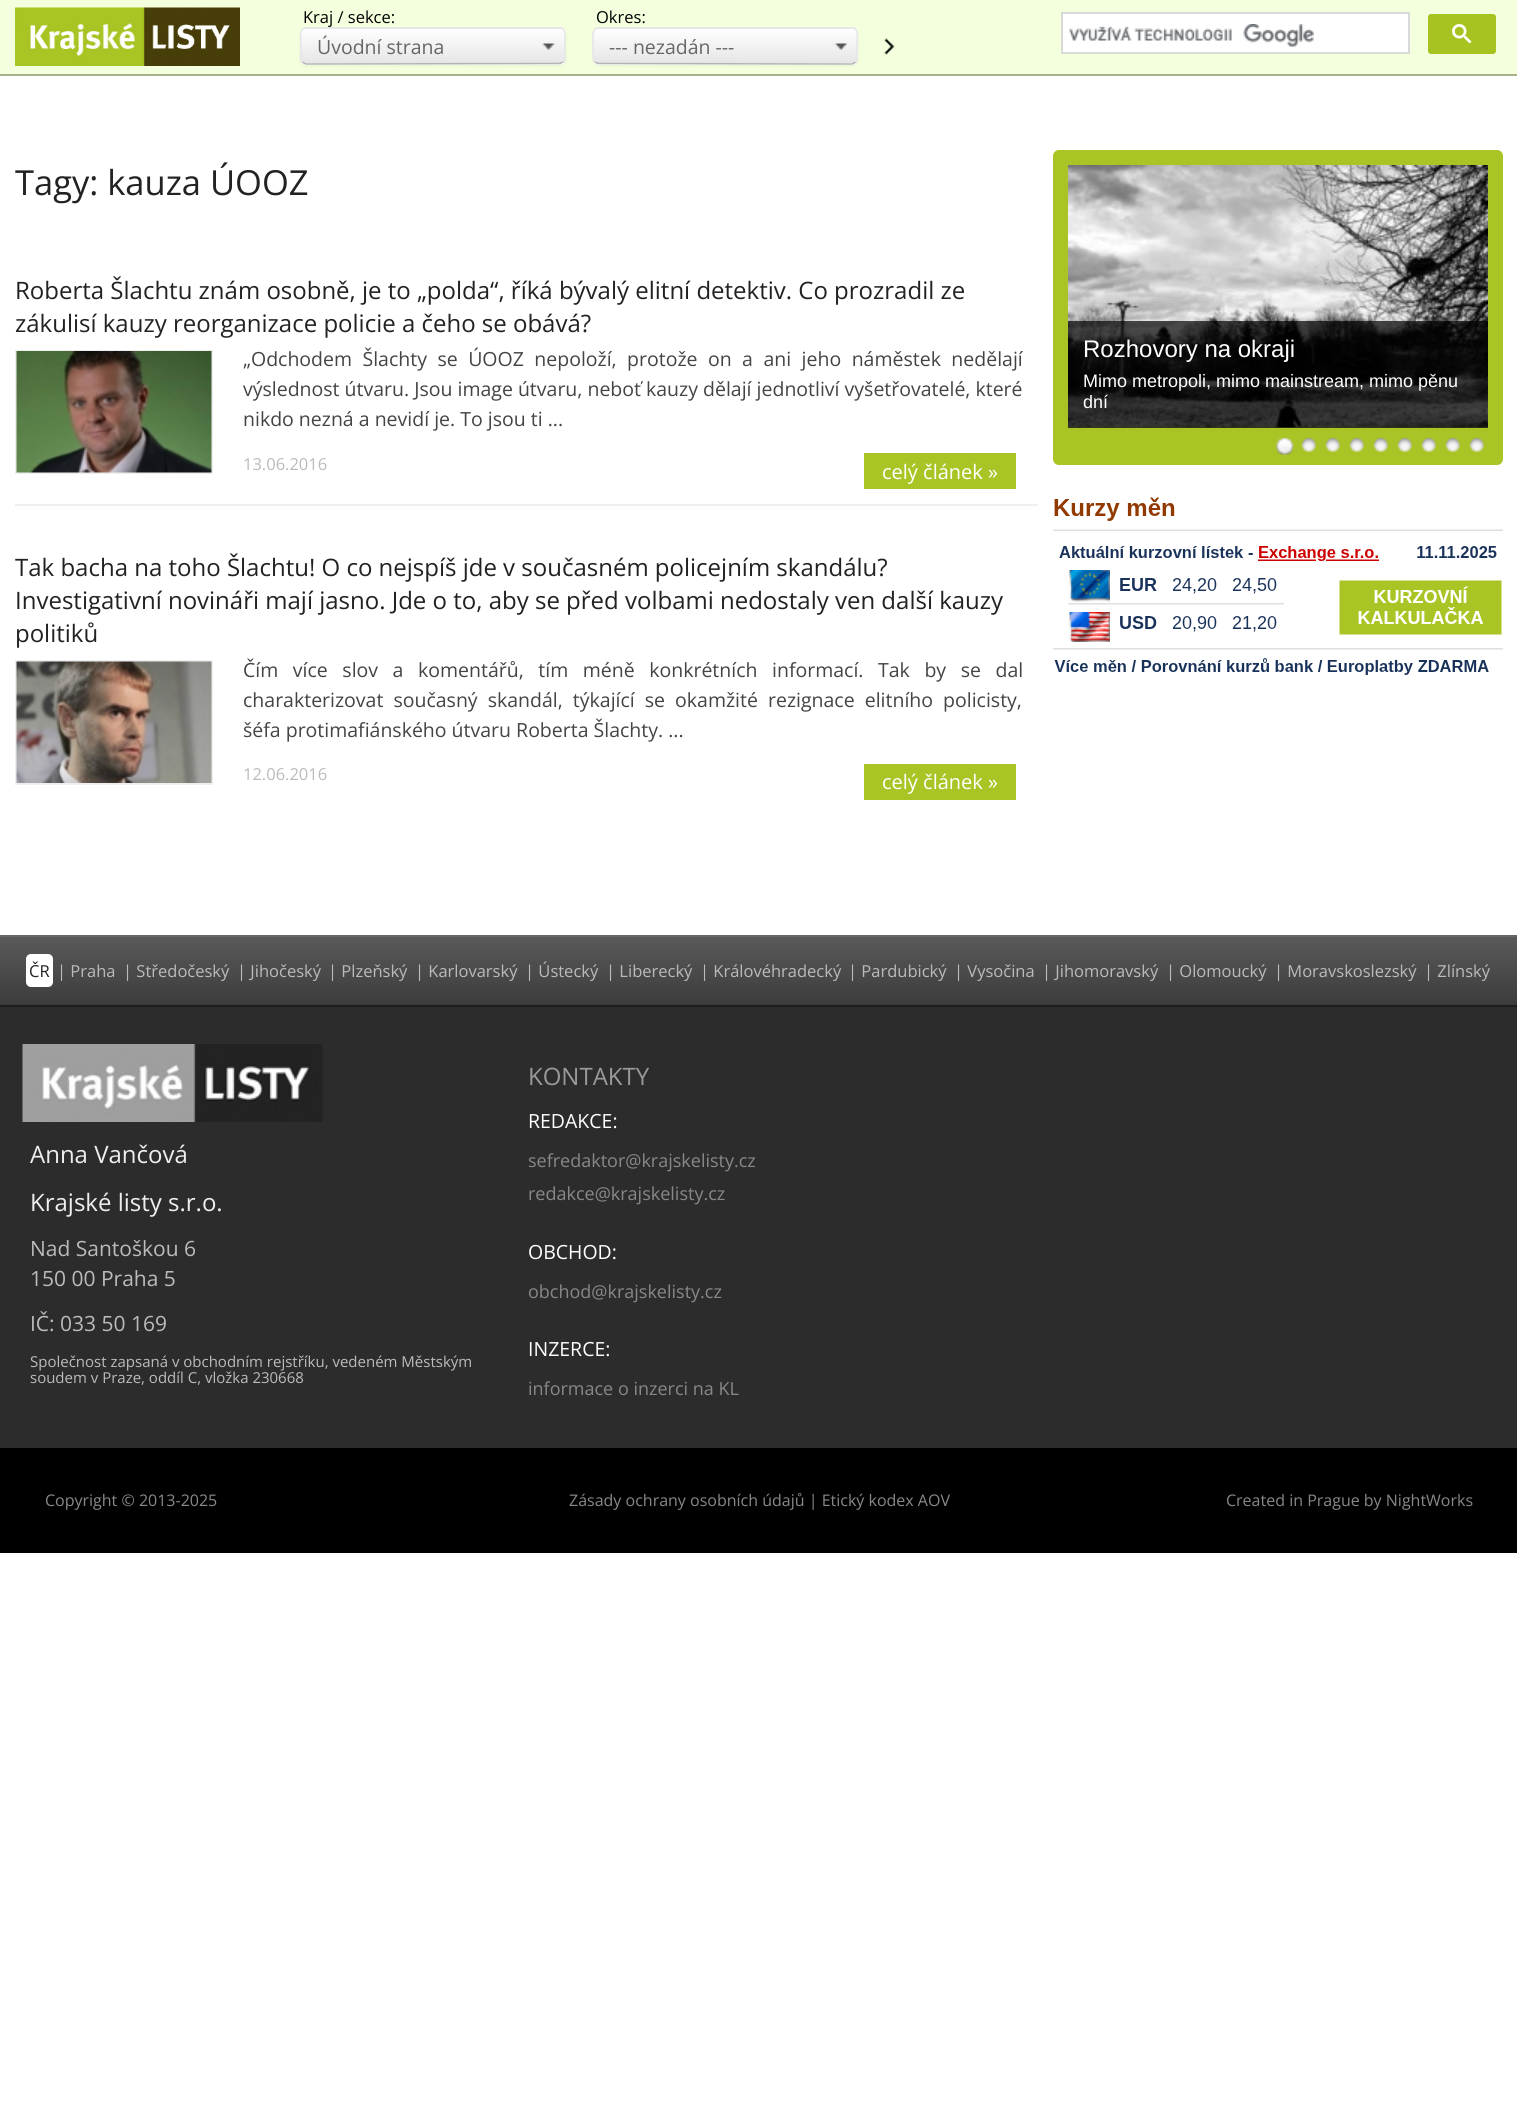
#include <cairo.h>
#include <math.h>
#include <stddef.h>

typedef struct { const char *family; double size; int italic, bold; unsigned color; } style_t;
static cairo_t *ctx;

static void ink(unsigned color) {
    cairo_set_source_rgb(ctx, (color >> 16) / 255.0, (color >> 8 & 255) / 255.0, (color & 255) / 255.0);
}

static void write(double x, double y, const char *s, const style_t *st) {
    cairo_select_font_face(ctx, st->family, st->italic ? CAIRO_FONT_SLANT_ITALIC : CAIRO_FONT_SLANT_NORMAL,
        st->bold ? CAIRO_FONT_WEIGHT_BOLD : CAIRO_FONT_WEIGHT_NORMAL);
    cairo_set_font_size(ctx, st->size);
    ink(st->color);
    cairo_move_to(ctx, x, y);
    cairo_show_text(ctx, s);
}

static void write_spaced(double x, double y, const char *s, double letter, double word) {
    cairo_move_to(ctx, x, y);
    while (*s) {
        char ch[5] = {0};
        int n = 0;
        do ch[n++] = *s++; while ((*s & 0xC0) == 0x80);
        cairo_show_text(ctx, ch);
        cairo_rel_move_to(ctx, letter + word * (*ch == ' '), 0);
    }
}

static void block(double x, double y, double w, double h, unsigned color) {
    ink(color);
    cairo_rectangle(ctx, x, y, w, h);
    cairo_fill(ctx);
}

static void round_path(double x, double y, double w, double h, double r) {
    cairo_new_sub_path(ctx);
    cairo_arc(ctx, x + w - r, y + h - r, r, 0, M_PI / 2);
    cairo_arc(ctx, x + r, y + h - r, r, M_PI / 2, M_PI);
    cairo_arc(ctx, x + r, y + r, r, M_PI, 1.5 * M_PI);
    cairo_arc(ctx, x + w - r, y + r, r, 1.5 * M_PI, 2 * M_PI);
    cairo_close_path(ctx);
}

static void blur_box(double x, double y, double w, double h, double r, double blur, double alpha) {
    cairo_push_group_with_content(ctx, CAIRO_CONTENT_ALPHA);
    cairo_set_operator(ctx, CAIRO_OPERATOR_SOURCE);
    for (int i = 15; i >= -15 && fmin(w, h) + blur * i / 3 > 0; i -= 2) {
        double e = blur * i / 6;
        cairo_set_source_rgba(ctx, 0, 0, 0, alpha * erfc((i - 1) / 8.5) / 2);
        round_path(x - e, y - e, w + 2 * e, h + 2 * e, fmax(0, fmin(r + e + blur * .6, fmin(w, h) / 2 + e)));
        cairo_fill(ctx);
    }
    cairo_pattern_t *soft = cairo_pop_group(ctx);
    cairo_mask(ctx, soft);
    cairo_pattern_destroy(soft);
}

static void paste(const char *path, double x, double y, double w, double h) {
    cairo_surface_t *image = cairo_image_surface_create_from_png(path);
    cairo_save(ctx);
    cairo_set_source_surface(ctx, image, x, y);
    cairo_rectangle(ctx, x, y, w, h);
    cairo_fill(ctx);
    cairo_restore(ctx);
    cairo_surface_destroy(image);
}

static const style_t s1 = {"Open Sans", 16.5, 0, 0, 0x000000};
static const style_t s2 = {"Open Sans", 19.5, 0, 0, 0x666666};
static const style_t s3 = {"Open Sans", 34.5, 0, 0, 0x222222};
static const style_t s4 = {"Open Sans", 24, 0, 0, 0x222222};
static const style_t s5 = {"Open Sans", 19.5, 0, 0, 0x444444};
static const style_t s6 = {"Open Sans", 16.5, 0, 0, 0xbbbbbb};
static const style_t s7 = {"Open Sans", 20, 0, 0, 0xffffff};
static const style_t s8 = {"Liberation Sans", 24, 0, 0, 0xffffff};
static const style_t s9 = {"Liberation Sans", 18, 0, 0, 0xffffff};
static const style_t s10 = {"Open Sans", 16.5, 0, 0, 0x222222};
static const style_t s11 = {"Open Sans", 24, 0, 0, 0xeeeeee};
static const style_t s12 = {"Open Sans", 21, 0, 0, 0xbbbbbb};
static const style_t s13 = {"Open Sans", 15, 0, 0, 0xbbbbbb};
static const style_t s14 = {"Open Sans", 24, 0, 0, 0x999999};
static const style_t s15 = {"Open Sans", 19.5, 0, 0, 0xffffff};
static const style_t s16 = {"Open Sans", 18, 0, 0, 0x888888};
static const style_t s17 = {"Open Sans", 16, 0, 0, 0x888888};

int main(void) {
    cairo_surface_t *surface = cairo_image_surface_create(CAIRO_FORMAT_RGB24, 1517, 2107);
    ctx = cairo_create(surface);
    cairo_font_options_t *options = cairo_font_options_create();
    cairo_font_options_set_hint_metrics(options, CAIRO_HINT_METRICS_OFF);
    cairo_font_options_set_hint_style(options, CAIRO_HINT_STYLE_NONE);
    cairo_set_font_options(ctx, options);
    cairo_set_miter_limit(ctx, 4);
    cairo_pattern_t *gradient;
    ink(0xffffff);
    cairo_paint(ctx);
    block(0, 0, 1517, 74, 0xf4ffdd);
    block(0, 74, 1517, 2, 0xaab188);
    paste("pic1.png", 15, 7, 225, 59);
    write(303, 23, "Kraj / sekce:", &s1);
    ink(0x000000);
    blur_box(300, 29, 266, 37, 6, 1.5, 0.05);
    cairo_save(ctx);
    round_path(300, 27, 266, 38, 6);
    cairo_clip(ctx);
    gradient = cairo_pattern_create_linear(433, -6, 433, 29);
    cairo_pattern_add_color_stop_rgba(gradient, 0, 1, 1, 1, 1);
    cairo_pattern_add_color_stop_rgba(gradient, 1, 0.902, 0.902, 0.902, 1);
    cairo_set_source(ctx, gradient);
    cairo_pattern_destroy(gradient);
    cairo_rectangle(ctx, 300, 27, 266, 2);
    cairo_fill(ctx);
    gradient = cairo_pattern_create_linear(433, 28, 433, 63);
    cairo_pattern_add_color_stop_rgba(gradient, 0, 1, 1, 1, 1);
    cairo_pattern_add_color_stop_rgba(gradient, 1, 0.902, 0.902, 0.902, 1);
    cairo_set_source(ctx, gradient);
    cairo_pattern_destroy(gradient);
    cairo_rectangle(ctx, 300, 29, 266, 34);
    cairo_fill(ctx);
    gradient = cairo_pattern_create_linear(433, 63, 433, 98);
    cairo_pattern_add_color_stop_rgba(gradient, 0, 1, 1, 1, 1);
    cairo_pattern_add_color_stop_rgba(gradient, 1, 0.902, 0.902, 0.902, 1);
    cairo_set_source(ctx, gradient);
    cairo_pattern_destroy(gradient);
    cairo_rectangle(ctx, 300, 63, 266, 2);
    cairo_fill(ctx);
    cairo_restore(ctx);
    cairo_new_path(ctx);
    cairo_move_to(ctx, 563, 62);
    cairo_line_to(ctx, 560, 63.5);
    cairo_line_to(ctx, 306, 64);
    cairo_curve_to(ctx, 304.5, 63.5, 303.5, 63, 302.5, 62);
    ink(0xb3b3b3);
    cairo_set_line_width(ctx, 1.5);
    cairo_stroke(ctx);
    cairo_new_path(ctx);
    cairo_move_to(ctx, 302.5, 62);
    cairo_curve_to(ctx, 300, 60, 301, 57, 301, 54);
    cairo_line_to(ctx, 301, 41.5);
    cairo_curve_to(ctx, 301, 37.5, 299, 28, 306, 28);
    cairo_line_to(ctx, 559.5, 28);
    cairo_curve_to(ctx, 566.5, 28, 565, 37.5, 565, 41.5);
    cairo_line_to(ctx, 565, 54);
    cairo_curve_to(ctx, 565, 57, 565.5, 60, 563, 62);
    ink(0xe6e6e6);
    cairo_stroke(ctx);
    write(317, 54, "Úvodní strana", &s2);
    paste("pic2.png", 542, 43, 13, 7);
    write(596, 23, "Okres:", &s1);
    ink(0x000000);
    blur_box(593, 29, 265, 37, 6, 1.5, 0.05);
    cairo_save(ctx);
    round_path(593, 27, 265, 38, 6);
    cairo_clip(ctx);
    gradient = cairo_pattern_create_linear(725, -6, 725, 29);
    cairo_pattern_add_color_stop_rgba(gradient, 0, 1, 1, 1, 1);
    cairo_pattern_add_color_stop_rgba(gradient, 1, 0.902, 0.902, 0.902, 1);
    cairo_set_source(ctx, gradient);
    cairo_pattern_destroy(gradient);
    cairo_rectangle(ctx, 593, 27, 265, 2);
    cairo_fill(ctx);
    gradient = cairo_pattern_create_linear(725, 28, 725, 63);
    cairo_pattern_add_color_stop_rgba(gradient, 0, 1, 1, 1, 1);
    cairo_pattern_add_color_stop_rgba(gradient, 1, 0.902, 0.902, 0.902, 1);
    cairo_set_source(ctx, gradient);
    cairo_pattern_destroy(gradient);
    cairo_rectangle(ctx, 593, 29, 265, 34);
    cairo_fill(ctx);
    gradient = cairo_pattern_create_linear(725, 63, 725, 98);
    cairo_pattern_add_color_stop_rgba(gradient, 0, 1, 1, 1, 1);
    cairo_pattern_add_color_stop_rgba(gradient, 1, 0.902, 0.902, 0.902, 1);
    cairo_set_source(ctx, gradient);
    cairo_pattern_destroy(gradient);
    cairo_rectangle(ctx, 593, 63, 265, 2);
    cairo_fill(ctx);
    cairo_restore(ctx);
    cairo_set_source_rgba(ctx, 1, 1, 1, 0.2);
    cairo_new_path(ctx);
    cairo_move_to(ctx, 598, 30);
    cairo_line_to(ctx, 852, 30);
    cairo_curve_to(ctx, 858, 30, 856, 40, 856, 43);
    cairo_line_to(ctx, 856, 61);
    cairo_curve_to(ctx, 857, 60, 857, 59, 857, 58);
    cairo_line_to(ctx, 857, 34);
    cairo_curve_to(ctx, 857, 31, 855, 29, 852, 29);
    cairo_line_to(ctx, 599, 29);
    cairo_curve_to(ctx, 596, 29, 594, 31, 594, 34);
    cairo_curve_to(ctx, 594, 32, 596, 30, 598, 30);
    cairo_close_path(ctx);
    cairo_fill(ctx);
    cairo_new_path(ctx);
    cairo_move_to(ctx, 855.5, 62);
    cairo_curve_to(ctx, 854.5, 63, 853.5, 63.5, 852, 64);
    cairo_line_to(ctx, 598, 63.5);
    cairo_line_to(ctx, 595, 62);
    ink(0xb3b3b3);
    cairo_stroke(ctx);
    cairo_new_path(ctx);
    cairo_move_to(ctx, 595, 62);
    cairo_curve_to(ctx, 592.5, 60, 593, 57, 593, 54);
    cairo_line_to(ctx, 593, 41.5);
    cairo_curve_to(ctx, 593, 37.5, 591.5, 28, 598.5, 28);
    cairo_line_to(ctx, 852, 28);
    cairo_curve_to(ctx, 859, 28, 857, 37.5, 857, 41.5);
    cairo_line_to(ctx, 857, 54);
    cairo_curve_to(ctx, 857, 57, 858, 60, 855.5, 62);
    ink(0xe6e6e6);
    cairo_stroke(ctx);
    write(609, 54, "--- nezadán ---", &s2);
    paste("pic3.png", 834, 43, 13, 7);
    paste("pic4.png", 884, 38, 11, 17);
    ink(0xffffff);
    cairo_rectangle(ctx, 1062, 13, 347, 40);
    cairo_fill_preserve(ctx);
    ink(0xd9d9d9);
    cairo_set_line_width(ctx, 2);
    cairo_stroke(ctx);
    paste("pic5.png", 1069, 24, 245, 23);
    ink(0xa7c321);
    round_path(1429, 15, 66, 38, 2);
    cairo_fill_preserve(ctx);
    cairo_stroke(ctx);
    paste("pic6.png", 1452, 24, 20, 20);
    write(15, 195, "Tagy: kauza ÚOOZ", &s3);
    block(15, 504, 1023, 2, 0xefefef);
    write(15, 299, "Roberta Šlachtu znám osobně, je to „polda“, říká bývalý elitní detektiv. Co prozradil ze", &s4);
    write(15, 332, "zákulisí kauzy reorganizace policie a čeho se obává?", &s4);
    cairo_rectangle(ctx, 16, 351, 196, 122);
    ink(0xeeeeee);
    cairo_stroke(ctx);
    paste("pic7.png", 16, 351, 196, 122);
    cairo_set_font_size(ctx, 19.5);
    ink(0x444444);
    write_spaced(243, 366, "„Odchodem Šlachty se ÚOOZ nepoloží, protože on a ani jeho náměstek nedělají", 0, 5.4);
    write(243, 396, "výslednost útvaru. Jsou image útvaru, neboť kauzy dělají jednotliví vyšetřovatelé, které", &s5);
    write(243, 426, "nikdo nezná a nevidí je. To jsou ti ...", &s5);
    write(243, 470, "13.06.2016", &s6);
    block(864, 453, 152, 36, 0xa9c525);
    write(882, 479, "celý článek »", &s7);
    write(15, 576, "Tak bacha na toho Šlachtu! O co nejspíš jde v současném policejním skandálu?", &s4);
    write(15, 609, "Investigativní novináři mají jasno. Jde o to, aby se před volbami nedostaly ven další kauzy", &s4);
    write(15, 642, "politiků", &s4);
    cairo_rectangle(ctx, 16, 661, 196, 123);
    ink(0xeeeeee);
    cairo_stroke(ctx);
    paste("pic8.png", 16, 661, 196, 122);
    cairo_set_font_size(ctx, 19.5);
    ink(0x444444);
    write_spaced(243, 677, "Čím více slov a komentářů, tím méně konkrétních informací. Tak by se dal", 0, 9.5);
    write_spaced(243, 707, "charakterizovat současný skandál, týkající se okamžité rezignace elitního policisty,", 0, 5);
    write(243, 737, "šéfa protimafiánského útvaru Roberta Šlachty. ...", &s5);
    write(243, 780, "12.06.2016", &s6);
    block(864, 764, 152, 36, 0xa9c525);
    write(882, 789, "celý článek »", &s7);
    ink(0xa9c525);
    round_path(1053, 150, 450, 315, 6);
    cairo_fill(ctx);
    paste("pic9.png", 1068, 165, 420, 263);
    cairo_set_source_rgba(ctx, 0, 0, 0, 0.7);
    cairo_rectangle(ctx, 1068, 321, 420, 107);
    cairo_fill(ctx);
    write(1083, 357, "Rozhovory na okraji", &s8);
    write(1083, 387, "Mimo metropoli, mimo mainstream, mimo pěnu", &s9);
    write(1083, 408, "dní", &s9);
    paste("pic10.png", 1276, 438, 18, 17);
    paste("pic11.png", 1301, 438, 15, 14);
    paste("pic11.png", 1325, 438, 15, 14);
    paste("pic11.png", 1349, 438, 15, 14);
    paste("pic11.png", 1373, 438, 15, 14);
    paste("pic11.png", 1397, 438, 15, 14);
    paste("pic11.png", 1421, 438, 15, 14);
    paste("pic11.png", 1445, 438, 15, 14);
    paste("pic11.png", 1469, 438, 15, 14);
    paste("pic12.png", 1053, 497, 450, 178);
    block(0, 1007, 1517, 441, 0x2c2c2c);
    gradient = cairo_pattern_create_linear(759, 936, 759, 1005);
    cairo_pattern_add_color_stop_rgba(gradient, 0, 0.353, 0.353, 0.353, 1);
    cairo_pattern_add_color_stop_rgba(gradient, 1, 0.235, 0.235, 0.235, 1);
    cairo_set_source(ctx, gradient);
    cairo_pattern_destroy(gradient);
    cairo_rectangle(ctx, 0, 937, 1517, 68);
    cairo_fill(ctx);
    block(0, 935, 1517, 2, 0x686868);
    block(0, 1005, 1517, 2, 0x1c1c1c);
    ink(0xffffff);
    round_path(26, 954, 27, 33, 5);
    cairo_fill(ctx);
    write(29, 977, "ČR", &s10);
    write(57, 977, "| Praha", &s6);
    write(123, 977, "| Středočeský", &s6);
    write(237, 977, "| Jihočeský", &s6);
    write(328, 977, "| Plzeňský", &s6);
    write(415, 977, "| Karlovarský", &s6);
    write(525, 977, "| Ústecký", &s6);
    write(606, 977, "| Liberecký", &s6);
    write(700, 977, "| Královéhradecký", &s6);
    write(848, 977, "| Pardubický", &s6);
    write(954, 977, "| Vysočina", &s6);
    write(1042, 977, "| Jihomoravský", &s6);
    write(1166, 977, "| Olomoucký", &s6);
    write(1274, 977, "| Moravskoslezský", &s6);
    write(1424, 977, "| Zlínský", &s6);
    paste("pic13.png", 22, 1044, 301, 78);
    write(30, 1163, "Anna Vančová", &s11);
    write(30, 1211, "Krajské listy s.r.o.", &s11);
    write(30, 1256, "Nad Santoškou 6", &s12);
    write(30, 1286, "150 00 Praha 5", &s12);
    write(30, 1331, "IČ: 033 50 169", &s12);
    write(30, 1367, "Společnost zapsaná v obchodním rejstříku, vedeném Městským", &s13);
    write(30, 1383, "soudem v Praze, oddíl C, vložka 230668", &s13);
    write(528, 1085, "KONTAKTY", &s14);
    write(528, 1128, "REDAKCE:", &s15);
    write(528, 1167, "sefredaktor@krajskelisty.cz", &s16);
    write(528, 1200, "redakce@krajskelisty.cz", &s16);
    write(528, 1259, "OBCHOD:", &s15);
    write(528, 1298, "obchod@krajskelisty.cz", &s16);
    write(528, 1356, "INZERCE:", &s15);
    write(528, 1395, "informace o inzerci na KL", &s16);
    block(0, 1448, 1517, 105, 0x000000);
    write(45, 1506, "Copyright © 2013-2025", &s17);
    write(569, 1506, "Zásady ochrany osobních údajů | Etický kodex AOV", &s17);
    write(1226, 1506, "Created in Prague by NightWorks", &s17);
    cairo_surface_write_to_png(surface, "screenshot.png");
    cairo_font_options_destroy(options);
    cairo_destroy(ctx);
    cairo_surface_destroy(surface);
    return 0;
}
